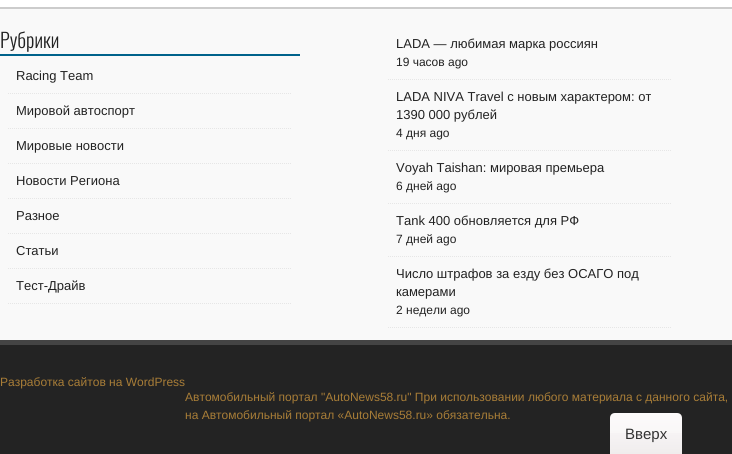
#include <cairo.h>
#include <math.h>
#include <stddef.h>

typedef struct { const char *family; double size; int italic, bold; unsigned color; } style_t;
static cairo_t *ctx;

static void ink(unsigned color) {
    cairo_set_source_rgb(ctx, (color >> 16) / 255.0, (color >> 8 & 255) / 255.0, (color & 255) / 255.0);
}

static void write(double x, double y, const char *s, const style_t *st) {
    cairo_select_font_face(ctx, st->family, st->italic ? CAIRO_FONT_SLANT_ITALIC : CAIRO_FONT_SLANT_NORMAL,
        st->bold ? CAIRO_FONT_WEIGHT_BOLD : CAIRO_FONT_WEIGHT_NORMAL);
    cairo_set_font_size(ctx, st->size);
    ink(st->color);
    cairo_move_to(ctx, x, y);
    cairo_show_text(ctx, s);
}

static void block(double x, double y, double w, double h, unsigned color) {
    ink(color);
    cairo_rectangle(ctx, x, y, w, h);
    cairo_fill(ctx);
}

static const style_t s1 = {"Oswald Light", 20, 0, 0, 0x222222};
static const style_t s2 = {"Liberation Sans", 13, 0, 0, 0x222222};
static const style_t s3 = {"Liberation Sans", 12, 0, 0, 0x222222};
static const style_t s4 = {"Liberation Sans", 12, 0, 0, 0xa87d37};
static const style_t s5 = {"Liberation Sans", 15, 0, 0, 0x333333};

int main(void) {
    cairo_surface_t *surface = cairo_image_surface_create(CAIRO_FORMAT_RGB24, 732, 454);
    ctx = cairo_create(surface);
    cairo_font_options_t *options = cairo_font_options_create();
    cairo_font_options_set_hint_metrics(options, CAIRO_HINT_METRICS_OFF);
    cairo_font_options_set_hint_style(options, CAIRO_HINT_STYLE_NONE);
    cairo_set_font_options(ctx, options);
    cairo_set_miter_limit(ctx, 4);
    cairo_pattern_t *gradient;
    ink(0xffffff);
    cairo_paint(ctx);
    block(0, 9, 732, 331, 0xf9f9f9);
    block(0, 7, 732, 2, 0xcccccc);
    block(0, 340, 732, 5, 0x444444);
    block(0, 54, 300, 2, 0x00628b);
    write(0, 48, "Рубрики", &s1);
    cairo_new_path(ctx);
    cairo_move_to(ctx, 8, 93.5);
    cairo_line_to(ctx, 292, 93.5);
    ink(0xe6e6e6);
    cairo_set_line_width(ctx, 1);
    cairo_set_dash(ctx, (double[]){1, 1}, 2, 0);
    cairo_stroke(ctx);
    write(16, 80, "Racing Team", &s2);
    cairo_new_path(ctx);
    cairo_move_to(ctx, 8, 128.5);
    cairo_line_to(ctx, 292, 128.5);
    ink(0xe6e6e6);
    cairo_stroke(ctx);
    write(16, 115, "Мировой автоспорт", &s2);
    cairo_new_path(ctx);
    cairo_move_to(ctx, 8, 163.5);
    cairo_line_to(ctx, 292, 163.5);
    ink(0xe6e6e6);
    cairo_stroke(ctx);
    write(16, 150, "Мировые новости", &s2);
    cairo_new_path(ctx);
    cairo_move_to(ctx, 8, 198.5);
    cairo_line_to(ctx, 292, 198.5);
    ink(0xe6e6e6);
    cairo_stroke(ctx);
    write(16, 185, "Новости Региона", &s2);
    cairo_new_path(ctx);
    cairo_move_to(ctx, 8, 233.5);
    cairo_line_to(ctx, 292, 233.5);
    ink(0xe6e6e6);
    cairo_stroke(ctx);
    write(16, 220, "Разное", &s2);
    cairo_new_path(ctx);
    cairo_move_to(ctx, 8, 268.5);
    cairo_line_to(ctx, 292, 268.5);
    ink(0xe6e6e6);
    cairo_stroke(ctx);
    write(16, 255, "Статьи", &s2);
    cairo_new_path(ctx);
    cairo_move_to(ctx, 8, 303.5);
    cairo_line_to(ctx, 292, 303.5);
    ink(0xe6e6e6);
    cairo_stroke(ctx);
    write(16, 290, "Тест-Драйв", &s2);
    cairo_new_path(ctx);
    cairo_move_to(ctx, 388, 79.5);
    cairo_line_to(ctx, 672, 79.5);
    ink(0xe6e6e6);
    cairo_stroke(ctx);
    write(396, 48, "LADA — любимая марка россиян", &s2);
    write(396, 66, "19 часов ago", &s3);
    cairo_new_path(ctx);
    cairo_move_to(ctx, 388, 150.5);
    cairo_line_to(ctx, 672, 150.5);
    ink(0xe6e6e6);
    cairo_stroke(ctx);
    write(396, 101, "LADA NIVA Travel с новым характером: от", &s2);
    write(396, 119, "1390 000 рублей", &s2);
    write(396, 137, "4 дня ago", &s3);
    cairo_new_path(ctx);
    cairo_move_to(ctx, 388, 203.5);
    cairo_line_to(ctx, 672, 203.5);
    ink(0xe6e6e6);
    cairo_stroke(ctx);
    write(396, 172, "Voyah Taishan: мировая премьера", &s2);
    write(396, 190, "6 дней ago", &s3);
    cairo_new_path(ctx);
    cairo_move_to(ctx, 388, 256.5);
    cairo_line_to(ctx, 672, 256.5);
    ink(0xe6e6e6);
    cairo_stroke(ctx);
    write(396, 225, "Tank 400 обновляется для РФ", &s2);
    write(396, 243, "7 дней ago", &s3);
    cairo_new_path(ctx);
    cairo_move_to(ctx, 388, 327.5);
    cairo_line_to(ctx, 672, 327.5);
    ink(0xe6e6e6);
    cairo_stroke(ctx);
    write(396, 278, "Число штрафов за езду без ОСАГО под", &s2);
    write(396, 296, "камерами", &s2);
    write(396, 314, "2 недели ago", &s3);
    block(0, 345, 732, 109, 0x232323);
    write(0, 386, "Разработка сайтов на WordPress", &s4);
    write(185, 401, "Автомобильный портал \"AutoNews58.ru\" При использовании любого материала с данного сайта,", &s4);
    write(185, 419, "на Автомобильный портал «AutoNews58.ru» обязательна.", &s4);
    gradient = cairo_pattern_create_linear(646, 413, 646, 454);
    cairo_pattern_add_color_stop_rgba(gradient, 0, 0.992, 0.98, 0.984, 1);
    cairo_pattern_add_color_stop_rgba(gradient, 0.5, 0.976, 0.969, 0.969, 1);
    cairo_pattern_add_color_stop_rgba(gradient, 0.5, 0.965, 0.953, 0.957, 1);
    cairo_pattern_add_color_stop_rgba(gradient, 1, 0.941, 0.929, 0.929, 1);
    cairo_set_source(ctx, gradient);
    cairo_pattern_destroy(gradient);
    cairo_new_path(ctx);
    cairo_move_to(ctx, 615, 413);
    cairo_line_to(ctx, 677, 413);
    cairo_curve_to(ctx, 680, 413, 682, 415, 682, 418);
    cairo_line_to(ctx, 682, 454);
    cairo_line_to(ctx, 610, 454);
    cairo_line_to(ctx, 610, 418);
    cairo_curve_to(ctx, 610, 415, 612, 413, 615, 413);
    cairo_close_path(ctx);
    cairo_fill(ctx);
    write(625, 439, "Вверх", &s5);
    cairo_surface_write_to_png(surface, "screenshot.png");
    cairo_font_options_destroy(options);
    cairo_destroy(ctx);
    cairo_surface_destroy(surface);
    return 0;
}
